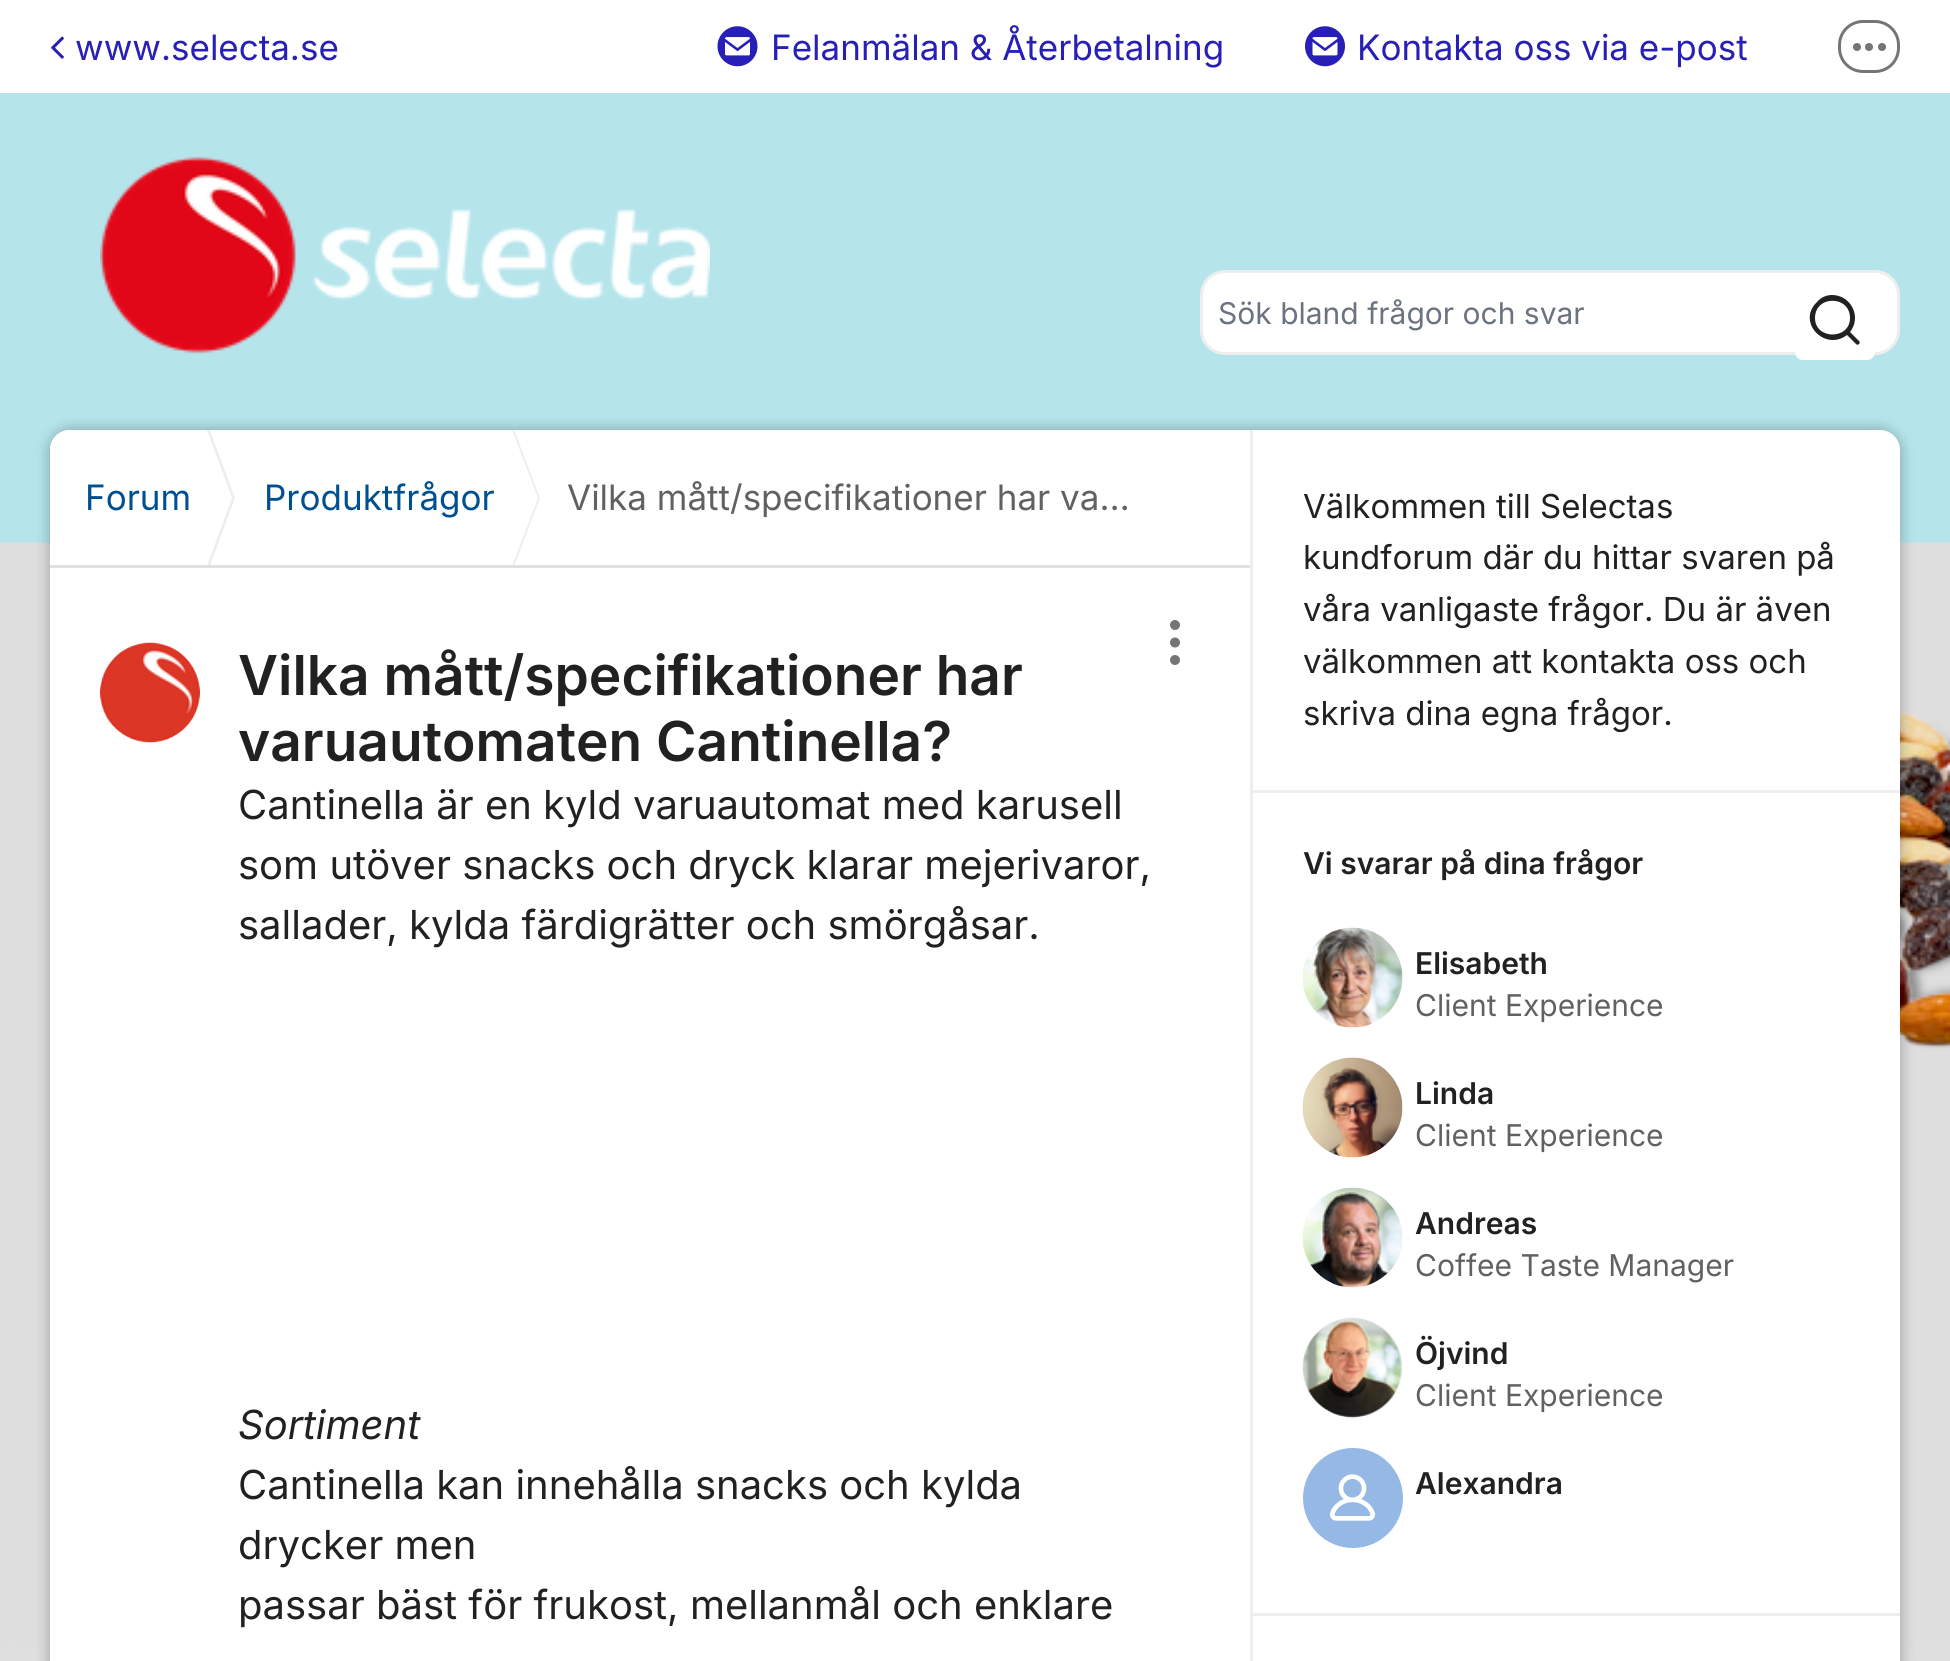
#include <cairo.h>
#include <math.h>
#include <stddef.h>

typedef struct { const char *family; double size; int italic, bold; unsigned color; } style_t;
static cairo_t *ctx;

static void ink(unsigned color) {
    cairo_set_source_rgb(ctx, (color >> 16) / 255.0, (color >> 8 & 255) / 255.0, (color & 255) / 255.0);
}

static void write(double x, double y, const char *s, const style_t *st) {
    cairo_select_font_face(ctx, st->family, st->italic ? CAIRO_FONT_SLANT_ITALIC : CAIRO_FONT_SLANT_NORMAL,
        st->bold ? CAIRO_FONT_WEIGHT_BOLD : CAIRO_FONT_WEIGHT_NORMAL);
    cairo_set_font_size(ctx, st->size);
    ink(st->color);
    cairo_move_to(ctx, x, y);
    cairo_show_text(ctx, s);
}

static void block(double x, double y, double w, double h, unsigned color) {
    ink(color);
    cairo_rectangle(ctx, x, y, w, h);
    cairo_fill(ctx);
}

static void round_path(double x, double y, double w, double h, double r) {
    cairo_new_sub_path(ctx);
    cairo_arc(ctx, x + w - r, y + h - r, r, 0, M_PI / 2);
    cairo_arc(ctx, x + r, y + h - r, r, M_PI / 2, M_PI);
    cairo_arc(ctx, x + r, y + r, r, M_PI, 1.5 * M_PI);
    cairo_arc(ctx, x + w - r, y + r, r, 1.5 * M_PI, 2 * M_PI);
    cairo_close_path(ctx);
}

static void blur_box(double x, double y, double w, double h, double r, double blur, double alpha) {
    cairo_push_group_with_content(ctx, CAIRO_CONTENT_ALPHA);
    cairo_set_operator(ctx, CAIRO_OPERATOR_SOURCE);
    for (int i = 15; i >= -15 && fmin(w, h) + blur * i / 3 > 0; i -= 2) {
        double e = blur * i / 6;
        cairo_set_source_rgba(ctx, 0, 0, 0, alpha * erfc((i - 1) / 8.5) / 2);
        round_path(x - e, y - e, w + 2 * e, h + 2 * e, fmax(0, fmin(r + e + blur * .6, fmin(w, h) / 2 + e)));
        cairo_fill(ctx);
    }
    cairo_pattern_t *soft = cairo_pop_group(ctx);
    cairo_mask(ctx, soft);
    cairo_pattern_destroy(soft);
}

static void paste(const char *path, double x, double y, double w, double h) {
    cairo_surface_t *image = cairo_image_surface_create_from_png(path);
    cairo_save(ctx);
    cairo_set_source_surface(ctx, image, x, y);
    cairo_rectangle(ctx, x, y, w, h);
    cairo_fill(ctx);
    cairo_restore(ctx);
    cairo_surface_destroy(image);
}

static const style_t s1 = {"Inter", 35, 0, 0, 0x2820b6};
static const style_t s2 = {"Inter", 30, 0, 0, 0x6b7280};
static const style_t s3 = {"Inter", 35, 0, 0, 0x004f91};
static const style_t s4 = {"Inter", 35, 0, 0, 0x616161};
static const style_t s5 = {"Inter SemiBold", 55, 0, 0, 0x212121};
static const style_t s6 = {"Inter", 40, 0, 0, 0x212121};
static const style_t s7 = {"Inter", 40, 1, 0, 0x212121};
static const style_t s8 = {"Inter", 33, 0, 0, 0x212121};
static const style_t s9 = {"Inter SemiBold", 30, 0, 0, 0x212121};
static const style_t s10 = {"Inter", 30, 0, 0, 0x616161};

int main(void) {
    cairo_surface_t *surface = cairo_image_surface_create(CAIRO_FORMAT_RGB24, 1950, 1661);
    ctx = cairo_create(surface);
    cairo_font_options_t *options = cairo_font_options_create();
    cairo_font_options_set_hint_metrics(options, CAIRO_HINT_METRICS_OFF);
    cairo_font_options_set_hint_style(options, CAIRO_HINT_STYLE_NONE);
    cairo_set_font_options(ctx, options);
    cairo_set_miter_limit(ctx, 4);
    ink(0xffffff);
    cairo_paint(ctx);
    paste("pic1.png", 51, 36, 13, 23);
    write(75, 60, "www.selecta.se", &s1);
    paste("pic2.png", 717, 26, 41, 41);
    write(771, 60, "Felanmälan & Återbetalning", &s1);
    paste("pic3.png", 1305, 26, 40, 41);
    write(1357, 60, "Kontakta oss via e-post", &s1);
    round_path(1839.5, 21.5, 59, 50, 23.5);
    ink(0x757575);
    cairo_set_line_width(ctx, 3);
    cairo_stroke(ctx);
    cairo_arc(ctx, 1857, 47, 4, 0, 2 * M_PI);
    cairo_fill(ctx);
    cairo_arc(ctx, 1869, 47, 4, 0, 2 * M_PI);
    cairo_fill(ctx);
    cairo_arc(ctx, 1882, 47, 4, 0, 2 * M_PI);
    cairo_fill(ctx);
    block(0, 93, 1950, 450, 0xb5e5eb);
    paste("pic4.png", 100, 156, 610, 198);
    ink(0xffffff);
    round_path(1201.5, 271.5, 697, 82, 23.5);
    cairo_fill_preserve(ctx);
    ink(0xeeeeee);
    cairo_stroke(ctx);
    write(1218, 324, "Sök bland frågor och svar", &s2);
    ink(0xffffff);
    round_path(1795, 280, 80, 80, 8);
    cairo_fill(ctx);
    ink(0x212121);
    cairo_set_fill_rule(ctx, CAIRO_FILL_RULE_EVEN_ODD);
    cairo_new_path(ctx);
    cairo_move_to(ctx, 1815, 318);
    cairo_curve_to(ctx, 1815, 295, 1850, 295, 1850, 318);
    cairo_curve_to(ctx, 1850, 340, 1815, 340, 1815, 318);
    cairo_close_path(ctx);
    cairo_move_to(ctx, 1832, 295);
    cairo_curve_to(ctx, 1827, 295, 1821, 297, 1817, 302);
    cairo_curve_to(ctx, 1796, 322, 1825, 352, 1847, 335);
    cairo_line_to(ctx, 1856, 344);
    cairo_curve_to(ctx, 1857, 345, 1858, 345, 1859, 344);
    cairo_curve_to(ctx, 1860, 343, 1860, 342, 1859, 341);
    cairo_line_to(ctx, 1850, 332);
    cairo_curve_to(ctx, 1862, 317, 1851, 295, 1832, 295);
    cairo_close_path(ctx);
    cairo_fill(ctx);
    paste("pic5.png", 0, 542, 1950, 1119);
    ink(0x000000);
    blur_box(50, 430, 1850, 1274, 20, 7.5, 0.3);
    ink(0xffffff);
    cairo_new_path(ctx);
    cairo_move_to(ctx, 70, 430);
    cairo_line_to(ctx, 1880, 430);
    cairo_curve_to(ctx, 1891, 430, 1900, 439, 1900, 450);
    cairo_line_to(ctx, 1900, 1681);
    cairo_line_to(ctx, 50, 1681);
    cairo_line_to(ctx, 50, 450);
    cairo_curve_to(ctx, 50, 439, 59, 430, 70, 430);
    cairo_close_path(ctx);
    cairo_fill(ctx);
    round_path(50, 430, 1203, 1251, 20);
    cairo_fill(ctx);
    block(50, 565, 1203, 3, 0xe0e0e0);
    cairo_save(ctx);
    cairo_set_fill_rule(ctx, CAIRO_FILL_RULE_WINDING);
    cairo_rectangle(ctx, 50, 430, 1203, 135);
    cairo_clip(ctx);
    ink(0xeeeeee);
    cairo_new_path(ctx);
    cairo_move_to(ctx, 198, 598);
    cairo_line_to(ctx, 198, 398);
    cairo_line_to(ctx, 235, 498);
    cairo_close_path(ctx);
    cairo_fill(ctx);
    ink(0xffffff);
    cairo_new_path(ctx);
    cairo_move_to(ctx, 195, 598);
    cairo_line_to(ctx, 195, 398);
    cairo_line_to(ctx, 232, 498);
    cairo_close_path(ctx);
    cairo_fill(ctx);
    cairo_restore(ctx);
    write(85, 510, "Forum", &s3);
    cairo_save(ctx);
    cairo_set_fill_rule(ctx, CAIRO_FILL_RULE_WINDING);
    cairo_rectangle(ctx, 50, 430, 1203, 135);
    cairo_clip(ctx);
    ink(0xeeeeee);
    cairo_new_path(ctx);
    cairo_move_to(ctx, 502, 598);
    cairo_line_to(ctx, 502, 398);
    cairo_line_to(ctx, 540, 498);
    cairo_close_path(ctx);
    cairo_fill(ctx);
    ink(0xffffff);
    cairo_new_path(ctx);
    cairo_move_to(ctx, 500, 598);
    cairo_line_to(ctx, 500, 398);
    cairo_line_to(ctx, 538, 498);
    cairo_close_path(ctx);
    cairo_fill(ctx);
    cairo_restore(ctx);
    write(264, 510, "Produktfrågor", &s3);
    write(567, 510, "Vilka mått/specifikationer har va…", &s4);
    paste("pic6.png", 100, 642, 100, 101);
    write(238, 695, "Vilka mått/specifikationer har", &s5);
    write(238, 761, "varuautomaten Cantinella?", &s5);
    paste("pic7.png", 1170, 620, 10, 45);
    write(238, 819, "Cantinella är en kyld varuautomat med karusell", &s6);
    write(238, 879, "som utöver snacks och dryck klarar mejerivaror,", &s6);
    write(238, 939, "sallader, kylda färdigrätter och smörgåsar.", &s6);
    write(238, 1439, "Sortiment", &s7);
    write(238, 1499, "Cantinella kan innehålla snacks och kylda", &s6);
    write(238, 1559, "drycker men", &s6);
    write(238, 1619, "passar bäst för frukost, mellanmål och enklare", &s6);
    block(1250, 430, 3, 1231, 0xeeeeee);
    block(1253, 790, 647, 3, 0xeeeeee);
    write(1303, 518, "Välkommen till Selectas", &s8);
    write(1303, 569, "kundforum där du hittar svaren på", &s8);
    write(1303, 621, "våra vanligaste frågor. Du är även", &s8);
    write(1303, 673, "välkommen att kontakta oss och", &s8);
    write(1303, 725, "skriva dina egna frågor.", &s8);
    block(1253, 1613, 647, 3, 0xeeeeee);
    write(1303, 874, "Vi svarar på dina frågor", &s9);
    paste("pic8.png", 1302, 927, 101, 101);
    write(1415, 974, "Elisabeth", &s9);
    write(1415, 1016, "Client Experience", &s10);
    paste("pic9.png", 1302, 1057, 101, 101);
    write(1415, 1104, "Linda", &s9);
    write(1415, 1146, "Client Experience", &s10);
    paste("pic10.png", 1302, 1187, 101, 101);
    write(1415, 1234, "Andreas", &s9);
    write(1415, 1276, "Coffee Taste Manager", &s10);
    paste("pic11.png", 1302, 1317, 101, 101);
    write(1415, 1364, "Öjvind", &s9);
    write(1415, 1406, "Client Experience", &s10);
    ink(0x95b9e4);
    cairo_new_path(ctx);
    cairo_arc(ctx, 1353, 1498, 50, 0, 2 * M_PI);
    cairo_fill(ctx);
    paste("pic12.png", 1329, 1474, 47, 47);
    write(1415, 1494, "Alexandra", &s9);
    cairo_surface_write_to_png(surface, "screenshot.png");
    cairo_font_options_destroy(options);
    cairo_destroy(ctx);
    cairo_surface_destroy(surface);
    return 0;
}
